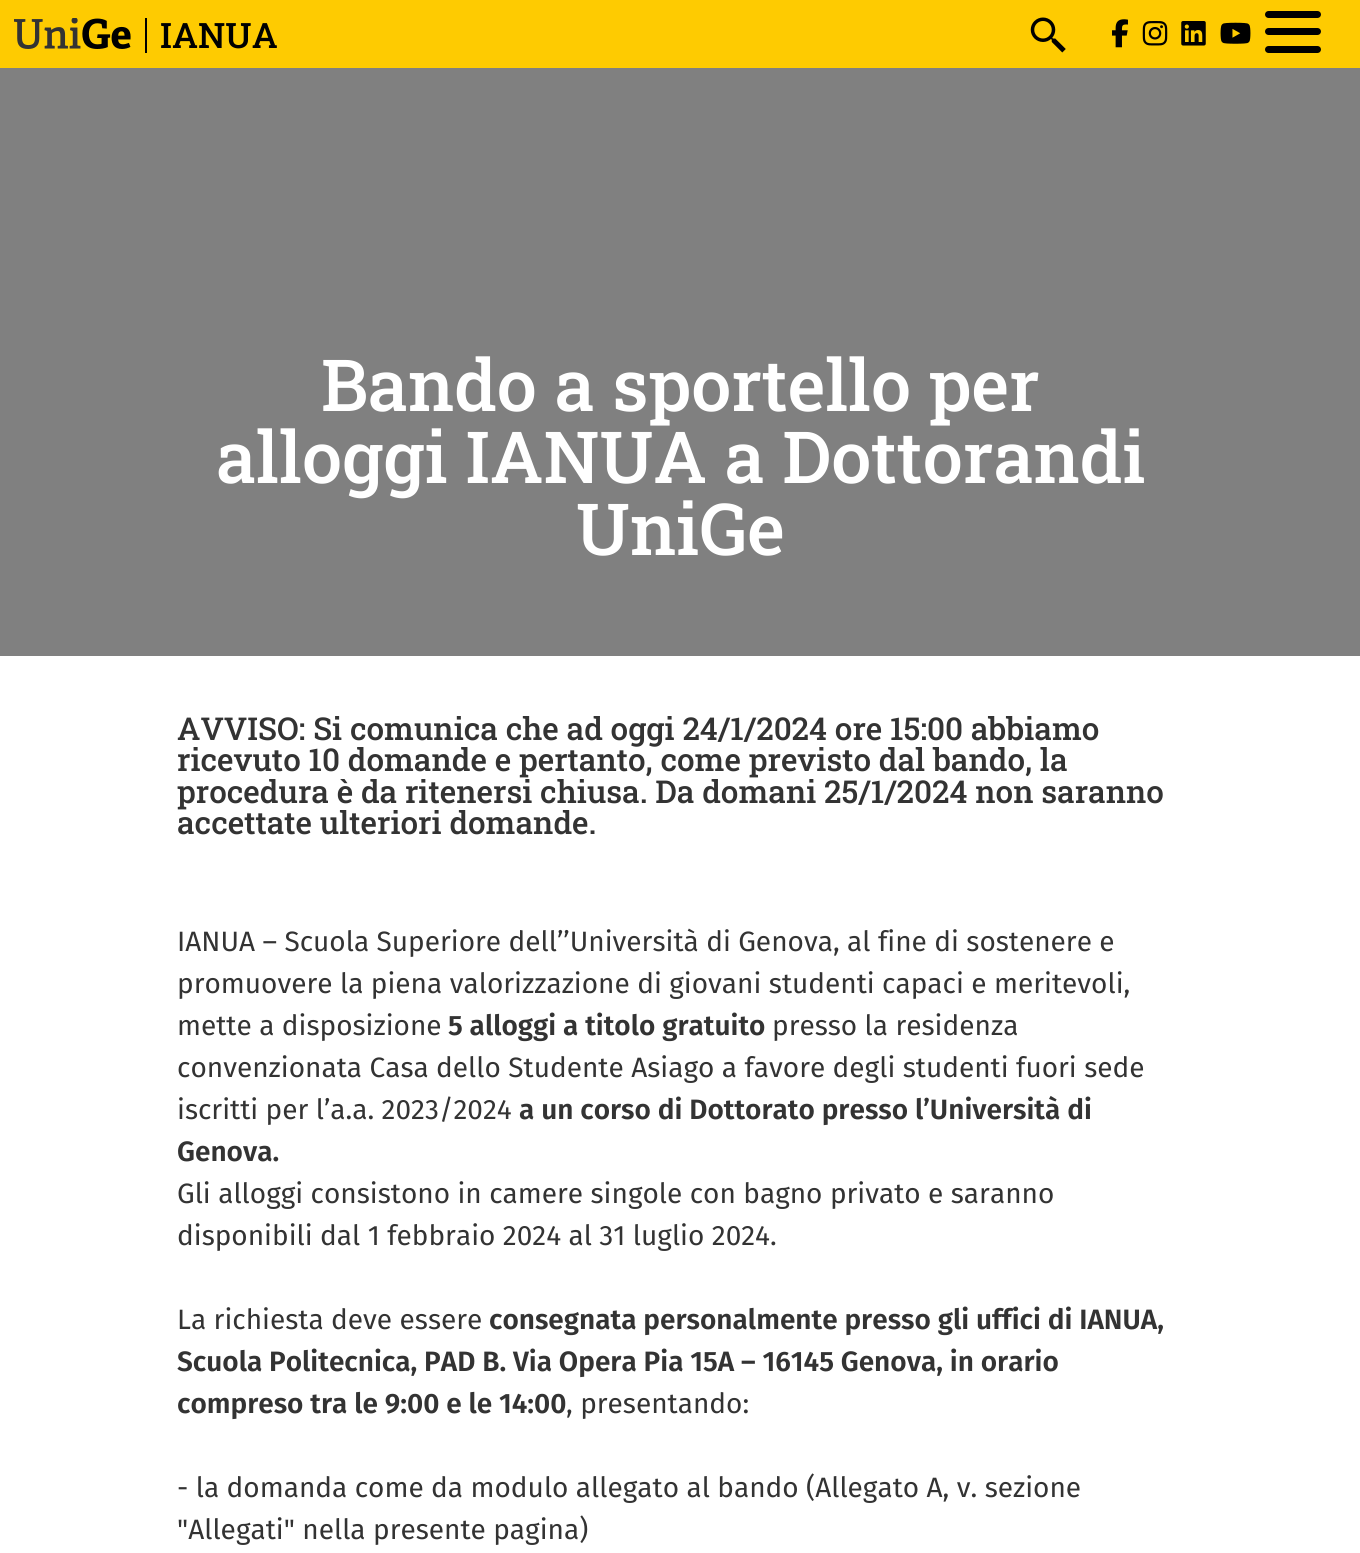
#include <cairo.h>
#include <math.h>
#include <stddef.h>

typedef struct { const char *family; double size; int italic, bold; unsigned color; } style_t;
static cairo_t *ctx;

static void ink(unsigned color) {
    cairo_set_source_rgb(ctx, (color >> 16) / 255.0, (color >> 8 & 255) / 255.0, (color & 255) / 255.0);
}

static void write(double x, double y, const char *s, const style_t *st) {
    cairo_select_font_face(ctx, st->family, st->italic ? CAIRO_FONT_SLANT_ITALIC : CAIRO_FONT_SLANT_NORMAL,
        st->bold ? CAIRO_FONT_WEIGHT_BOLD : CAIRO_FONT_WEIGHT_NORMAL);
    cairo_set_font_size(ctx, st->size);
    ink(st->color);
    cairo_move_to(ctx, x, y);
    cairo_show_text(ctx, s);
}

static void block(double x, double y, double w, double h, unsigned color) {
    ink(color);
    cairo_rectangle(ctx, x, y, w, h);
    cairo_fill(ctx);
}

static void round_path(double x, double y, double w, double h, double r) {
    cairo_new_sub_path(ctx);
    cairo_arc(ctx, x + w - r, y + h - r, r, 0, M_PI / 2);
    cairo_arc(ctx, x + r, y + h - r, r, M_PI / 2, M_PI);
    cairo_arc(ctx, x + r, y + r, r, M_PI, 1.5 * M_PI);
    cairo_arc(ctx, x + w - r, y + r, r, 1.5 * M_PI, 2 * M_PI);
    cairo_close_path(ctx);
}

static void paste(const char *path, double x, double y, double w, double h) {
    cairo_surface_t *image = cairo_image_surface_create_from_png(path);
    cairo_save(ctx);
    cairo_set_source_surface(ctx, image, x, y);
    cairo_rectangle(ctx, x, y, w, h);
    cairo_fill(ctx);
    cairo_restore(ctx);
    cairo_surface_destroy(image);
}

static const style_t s1 = {"Roboto Slab Medium", 35, 0, 0, 0x000000};
static const style_t s2 = {"Roboto Slab Medium", 71.8, 0, 0, 0xffffff};
static const style_t s3 = {"Roboto Slab Medium", 31.5, 0, 0, 0x333333};
static const style_t s4 = {"Fira Sans", 28, 0, 0, 0x333333};
static const style_t s5 = {"Fira Sans SemiBold", 28, 0, 0, 0x333333};

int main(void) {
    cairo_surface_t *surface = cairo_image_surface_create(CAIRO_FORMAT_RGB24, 1360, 1553);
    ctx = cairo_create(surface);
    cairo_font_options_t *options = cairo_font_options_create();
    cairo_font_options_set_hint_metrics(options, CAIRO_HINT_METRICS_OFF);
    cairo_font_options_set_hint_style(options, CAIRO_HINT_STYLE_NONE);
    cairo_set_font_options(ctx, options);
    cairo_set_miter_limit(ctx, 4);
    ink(0xffffff);
    cairo_paint(ctx);
    block(0, 0, 1360, 68, 0xfecb01);
    paste("pic1.png", 14, 18, 117, 31);
    block(145, 18, 2, 35, 0x000000);
    write(160, 48, "IANUA", &s1);
    paste("pic2.png", 1030, 17, 36, 36);
    paste("pic3.png", 1112, 19, 16, 29);
    paste("pic4.png", 1142, 21, 26, 25);
    paste("pic5.png", 1181, 21, 25, 25);
    paste("pic6.png", 1220, 22, 31, 22);
    round_path(1265, 11, 56, 7, 3.5);
    cairo_fill(ctx);
    round_path(1265, 28, 56, 7, 3.5);
    cairo_fill(ctx);
    round_path(1265, 46, 56, 7, 3.5);
    cairo_fill(ctx);
    block(0, 68, 1360, 588, 0x808080);
    write(321, 411, "Bando a sportello per", &s2);
    write(216, 483, "alloggi IANUA a Dottorandi", &s2);
    write(576, 555, "UniGe", &s2);
    write(177, 740, "AVVISO: Si comunica che ad oggi 24/1/2024 ore 15:00 abbiamo", &s3);
    write(177, 771, "ricevuto 10 domande e pertanto, come previsto dal bando, la", &s3);
    write(177, 803, "procedura è da ritenersi chiusa. Da domani 25/1/2024 non saranno", &s3);
    write(177, 834, "accettate ulteriori domande.", &s3);
    write(177, 951, "IANUA – Scuola Superiore dell’’Università di Genova, al fine di sostenere e", &s4);
    write(177, 993, "promuovere la piena valorizzazione di giovani studenti capaci e meritevoli,", &s4);
    write(177, 1035, "mette a disposizione", &s4);
    write(448, 1035, "5 alloggi a titolo gratuito", &s5);
    write(772, 1035, "presso la residenza", &s4);
    write(177, 1077, "convenzionata Casa dello Studente Asiago a favore degli studenti fuori sede", &s4);
    write(177, 1119, "iscritti per l’a.a. 2023/2024", &s4);
    write(519, 1119, "a un corso di Dottorato presso l’Università di", &s5);
    write(177, 1161, "Genova.", &s5);
    write(177, 1203, "Gli alloggi consistono in camere singole con bagno privato e saranno", &s4);
    write(177, 1245, "disponibili dal 1 febbraio 2024 al 31 luglio 2024.", &s4);
    write(177, 1329, "La richiesta deve essere", &s4);
    write(489, 1329, "consegnata personalmente presso gli uffici di IANUA,", &s5);
    write(177, 1371, "Scuola Politecnica, PAD B. Via Opera Pia 15A – 16145 Genova, in orario", &s5);
    write(177, 1413, "compreso tra le 9:00 e le 14:00", &s5);
    write(566, 1413, ", presentando:", &s4);
    write(177, 1497, "- la domanda come da modulo allegato al bando (Allegato A, v. sezione", &s4);
    write(177, 1539, "\"Allegati\" nella presente pagina)", &s4);
    cairo_surface_write_to_png(surface, "screenshot.png");
    cairo_font_options_destroy(options);
    cairo_destroy(ctx);
    cairo_surface_destroy(surface);
    return 0;
}
